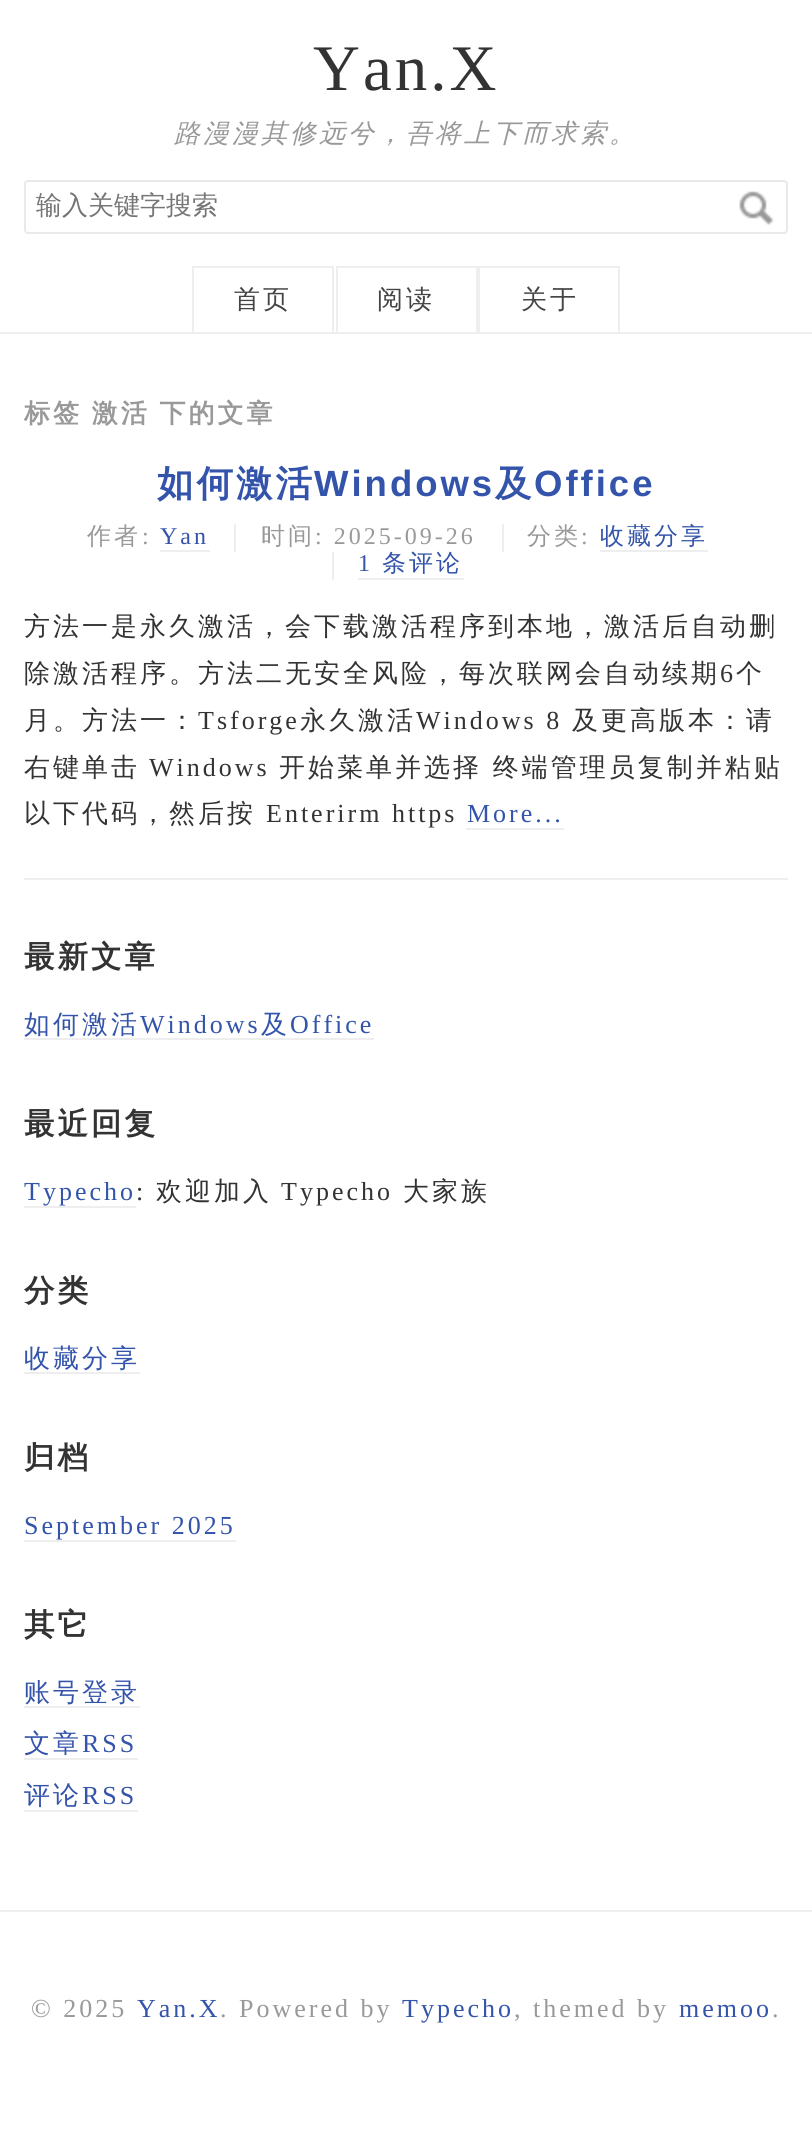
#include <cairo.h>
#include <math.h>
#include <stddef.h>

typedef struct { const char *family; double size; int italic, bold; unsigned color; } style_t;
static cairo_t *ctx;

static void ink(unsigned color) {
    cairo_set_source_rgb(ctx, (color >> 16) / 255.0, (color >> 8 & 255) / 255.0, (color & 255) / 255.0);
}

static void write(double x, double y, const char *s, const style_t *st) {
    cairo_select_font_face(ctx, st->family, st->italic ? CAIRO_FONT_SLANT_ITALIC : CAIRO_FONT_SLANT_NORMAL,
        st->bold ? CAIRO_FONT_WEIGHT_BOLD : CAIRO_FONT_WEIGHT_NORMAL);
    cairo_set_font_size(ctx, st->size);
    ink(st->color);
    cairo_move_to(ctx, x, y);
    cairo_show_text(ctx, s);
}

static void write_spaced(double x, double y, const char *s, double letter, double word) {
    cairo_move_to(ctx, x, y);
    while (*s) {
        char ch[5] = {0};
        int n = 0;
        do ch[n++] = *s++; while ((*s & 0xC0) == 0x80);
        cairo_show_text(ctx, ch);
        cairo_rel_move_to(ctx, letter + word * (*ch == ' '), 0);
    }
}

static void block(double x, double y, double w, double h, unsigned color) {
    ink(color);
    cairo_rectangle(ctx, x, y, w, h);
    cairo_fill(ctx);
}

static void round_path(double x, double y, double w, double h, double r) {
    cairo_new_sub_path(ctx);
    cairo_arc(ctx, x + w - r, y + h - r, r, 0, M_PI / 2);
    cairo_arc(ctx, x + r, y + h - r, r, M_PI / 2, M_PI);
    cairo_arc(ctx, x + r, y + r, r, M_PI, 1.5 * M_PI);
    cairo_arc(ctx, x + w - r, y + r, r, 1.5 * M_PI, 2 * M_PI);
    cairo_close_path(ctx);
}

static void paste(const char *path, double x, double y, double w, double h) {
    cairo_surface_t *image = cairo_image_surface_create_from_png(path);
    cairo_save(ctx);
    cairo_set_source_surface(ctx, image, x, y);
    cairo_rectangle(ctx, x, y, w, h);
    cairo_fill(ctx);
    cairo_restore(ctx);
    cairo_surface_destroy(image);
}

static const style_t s1 = {"WenQuanYi Zen Hei Medium", 26, 0, 0, 0x757575};

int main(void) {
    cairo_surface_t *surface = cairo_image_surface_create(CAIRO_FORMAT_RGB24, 812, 2143);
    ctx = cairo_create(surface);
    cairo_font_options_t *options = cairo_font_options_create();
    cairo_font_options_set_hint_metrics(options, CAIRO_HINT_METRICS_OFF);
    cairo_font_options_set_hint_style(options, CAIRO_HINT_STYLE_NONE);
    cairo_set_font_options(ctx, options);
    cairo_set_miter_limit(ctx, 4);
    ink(0xffffff);
    cairo_paint(ctx);
    block(0, 332, 812, 2, 0xeeeeee);
    cairo_select_font_face(ctx, "Liberation Serif", CAIRO_FONT_SLANT_NORMAL, CAIRO_FONT_WEIGHT_NORMAL);
    cairo_set_font_size(ctx, 65);
    ink(0x333333);
    write_spaced(313, 90, "Yan.X", 3, 0);
    cairo_select_font_face(ctx, "WenQuanYi Zen Hei Medium", CAIRO_FONT_SLANT_ITALIC, CAIRO_FONT_WEIGHT_NORMAL);
    cairo_set_font_size(ctx, 26);
    ink(0x999999);
    write_spaced(174, 142, "路漫漫其修远兮，吾将上下而求索。", 3, 0);
    round_path(25, 181, 762, 52, 3);
    ink(0xe9e9e9);
    cairo_stroke(ctx);
    write(36, 214, "输入关键字搜索", &s1);
    paste("pic1.png", 739, 191, 35, 34);
    block(192, 266, 142, 2, 0xeeeeee);
    block(332, 266, 2, 66, 0xeeeeee);
    block(192, 266, 2, 66, 0xeeeeee);
    ink(0x444444);
    write_spaced(234, 308, "首页", 3, 0);
    block(336, 266, 284, 2, 0xeeeeee);
    block(476, 266, 4, 66, 0xeeeeee);
    block(336, 266, 2, 66, 0xeeeeee);
    ink(0x444444);
    write_spaced(377, 308, "阅读", 3, 0);
    block(618, 266, 2, 66, 0xeeeeee);
    ink(0x444444);
    write_spaced(521, 308, "关于", 3, 0);
    cairo_select_font_face(ctx, "WenQuanYi Zen Hei", CAIRO_FONT_SLANT_NORMAL, CAIRO_FONT_WEIGHT_BOLD);
    ink(0x999999);
    write_spaced(24, 422, "标签 激活 下的文章", 3, -1);
    block(24, 878, 764, 2, 0xeeeeee);
    cairo_set_font_size(ctx, 36.5);
    ink(0x3354aa);
    write_spaced(157, 496, "如何激活", 3, 0);
    cairo_select_font_face(ctx, "Liberation Sans", CAIRO_FONT_SLANT_NORMAL, CAIRO_FONT_WEIGHT_BOLD);
    write_spaced(314, 496, "Windows", 3, 0);
    cairo_select_font_face(ctx, "WenQuanYi Zen Hei", CAIRO_FONT_SLANT_NORMAL, CAIRO_FONT_WEIGHT_BOLD);
    write_spaced(495, 496, "及", 3, 0);
    cairo_select_font_face(ctx, "Liberation Sans", CAIRO_FONT_SLANT_NORMAL, CAIRO_FONT_WEIGHT_BOLD);
    write_spaced(534, 496, "Office", 3, 0);
    cairo_select_font_face(ctx, "WenQuanYi Zen Hei Medium", CAIRO_FONT_SLANT_NORMAL, CAIRO_FONT_WEIGHT_NORMAL);
    cairo_set_font_size(ctx, 24);
    ink(0x999999);
    write_spaced(87, 544, "作者", 3, 0);
    cairo_select_font_face(ctx, "Liberation Serif", CAIRO_FONT_SLANT_NORMAL, CAIRO_FONT_WEIGHT_NORMAL);
    write_spaced(142, 544, ":", 3, 0);
    ink(0x3354aa);
    write_spaced(160, 544, "Yan", 3, 0);
    block(160, 550, 50, 2, 0xeeeeee);
    block(234, 524, 2, 28, 0xeeeeee);
    cairo_select_font_face(ctx, "WenQuanYi Zen Hei Medium", CAIRO_FONT_SLANT_NORMAL, CAIRO_FONT_WEIGHT_NORMAL);
    ink(0x999999);
    write_spaced(261, 544, "时间", 3, 0);
    cairo_select_font_face(ctx, "Liberation Serif", CAIRO_FONT_SLANT_NORMAL, CAIRO_FONT_WEIGHT_NORMAL);
    write_spaced(315, 544, ": 2025-09-26", 3, 0);
    block(502, 524, 2, 28, 0xeeeeee);
    cairo_select_font_face(ctx, "WenQuanYi Zen Hei Medium", CAIRO_FONT_SLANT_NORMAL, CAIRO_FONT_WEIGHT_NORMAL);
    ink(0x999999);
    write_spaced(527, 544, "分类", 3, 0);
    cairo_select_font_face(ctx, "Liberation Serif", CAIRO_FONT_SLANT_NORMAL, CAIRO_FONT_WEIGHT_NORMAL);
    write_spaced(581, 544, ":", 3, 0);
    cairo_select_font_face(ctx, "WenQuanYi Zen Hei Medium", CAIRO_FONT_SLANT_NORMAL, CAIRO_FONT_WEIGHT_NORMAL);
    ink(0x3354aa);
    write_spaced(600, 544, "收藏分享", 3, 0);
    block(600, 550, 108, 2, 0xeeeeee);
    block(332, 552, 2, 28, 0xeeeeee);
    cairo_select_font_face(ctx, "Liberation Serif", CAIRO_FONT_SLANT_NORMAL, CAIRO_FONT_WEIGHT_NORMAL);
    ink(0x3354aa);
    write_spaced(358, 571, "1", 3, 0);
    block(358, 578, 106, 2, 0xeeeeee);
    cairo_select_font_face(ctx, "WenQuanYi Zen Hei Medium", CAIRO_FONT_SLANT_NORMAL, CAIRO_FONT_WEIGHT_NORMAL);
    ink(0x3354aa);
    write_spaced(382, 571, "条评论", 3, 0);
    cairo_set_font_size(ctx, 26);
    ink(0x333333);
    write_spaced(24, 635, "方法一是永久激活，会下载激活程序到本地，激活后自动删", 3, 0);
    write_spaced(24, 682, "除激活程序。方法二无安全风险，每次联网会自动续期", 3, 0);
    cairo_select_font_face(ctx, "Liberation Serif", CAIRO_FONT_SLANT_NORMAL, CAIRO_FONT_WEIGHT_NORMAL);
    write_spaced(720, 682, "6", 3, 0);
    cairo_select_font_face(ctx, "WenQuanYi Zen Hei Medium", CAIRO_FONT_SLANT_NORMAL, CAIRO_FONT_WEIGHT_NORMAL);
    write_spaced(736, 682, "个", 3, 0);
    write_spaced(24, 729, "月。方法一：", 3, 0);
    cairo_select_font_face(ctx, "Liberation Serif", CAIRO_FONT_SLANT_NORMAL, CAIRO_FONT_WEIGHT_NORMAL);
    write_spaced(198, 729, "Tsforge", 3, 0);
    cairo_select_font_face(ctx, "WenQuanYi Zen Hei Medium", CAIRO_FONT_SLANT_NORMAL, CAIRO_FONT_WEIGHT_NORMAL);
    write_spaced(300, 729, "永久激活", 3, 0);
    cairo_select_font_face(ctx, "Liberation Serif", CAIRO_FONT_SLANT_NORMAL, CAIRO_FONT_WEIGHT_NORMAL);
    write_spaced(416, 729, "Windows 8", 3, 0);
    cairo_select_font_face(ctx, "WenQuanYi Zen Hei Medium", CAIRO_FONT_SLANT_NORMAL, CAIRO_FONT_WEIGHT_NORMAL);
    write_spaced(572, 729, "及更高版本：请", 3, 0);
    write_spaced(24, 776, "右键单击", 3, 0);
    cairo_select_font_face(ctx, "Liberation Serif", CAIRO_FONT_SLANT_NORMAL, CAIRO_FONT_WEIGHT_NORMAL);
    write_spaced(149, 776, "Windows", 3, 0);
    cairo_select_font_face(ctx, "WenQuanYi Zen Hei Medium", CAIRO_FONT_SLANT_NORMAL, CAIRO_FONT_WEIGHT_NORMAL);
    write_spaced(279, 776, "开始菜单并选择 终端管理员复制并粘贴", 3, 0);
    write_spaced(24, 822, "以下代码，然后按", 3, 0);
    cairo_select_font_face(ctx, "Liberation Serif", CAIRO_FONT_SLANT_NORMAL, CAIRO_FONT_WEIGHT_NORMAL);
    write_spaced(266, 822, "Enterirm https", 3, 0);
    ink(0x3354aa);
    write_spaced(467, 822, "More...", 3, 0);
    block(466, 828, 98, 2, 0xeeeeee);
    cairo_select_font_face(ctx, "WenQuanYi Zen Hei", CAIRO_FONT_SLANT_NORMAL, CAIRO_FONT_WEIGHT_BOLD);
    cairo_set_font_size(ctx, 30.5);
    ink(0x333333);
    write_spaced(24, 967, "最新文章", 3, 0);
    cairo_select_font_face(ctx, "WenQuanYi Zen Hei Medium", CAIRO_FONT_SLANT_NORMAL, CAIRO_FONT_WEIGHT_NORMAL);
    cairo_set_font_size(ctx, 26);
    ink(0x3354aa);
    write_spaced(24, 1033, "如何激活", 3, 0);
    block(24, 1038, 350, 2, 0xeeeeee);
    cairo_select_font_face(ctx, "Liberation Serif", CAIRO_FONT_SLANT_NORMAL, CAIRO_FONT_WEIGHT_NORMAL);
    ink(0x3354aa);
    write_spaced(140, 1033, "Windows", 3, 0);
    cairo_select_font_face(ctx, "WenQuanYi Zen Hei Medium", CAIRO_FONT_SLANT_NORMAL, CAIRO_FONT_WEIGHT_NORMAL);
    write_spaced(261, 1033, "及", 3, 0);
    cairo_select_font_face(ctx, "Liberation Serif", CAIRO_FONT_SLANT_NORMAL, CAIRO_FONT_WEIGHT_NORMAL);
    write_spaced(290, 1033, "Office", 3, 0);
    cairo_select_font_face(ctx, "WenQuanYi Zen Hei", CAIRO_FONT_SLANT_NORMAL, CAIRO_FONT_WEIGHT_BOLD);
    cairo_set_font_size(ctx, 30.5);
    ink(0x333333);
    write_spaced(24, 1134, "最近回复", 3, 0);
    cairo_select_font_face(ctx, "Liberation Serif", CAIRO_FONT_SLANT_NORMAL, CAIRO_FONT_WEIGHT_NORMAL);
    cairo_set_font_size(ctx, 26);
    ink(0x3354aa);
    write_spaced(24, 1200, "Typecho", 3, 0);
    block(24, 1206, 112, 2, 0xeeeeee);
    ink(0x333333);
    write_spaced(136, 1200, ":", 3, 0);
    cairo_select_font_face(ctx, "WenQuanYi Zen Hei Medium", CAIRO_FONT_SLANT_NORMAL, CAIRO_FONT_WEIGHT_NORMAL);
    write_spaced(156, 1200, "欢迎加入", 3, 0);
    cairo_select_font_face(ctx, "Liberation Serif", CAIRO_FONT_SLANT_NORMAL, CAIRO_FONT_WEIGHT_NORMAL);
    write_spaced(281, 1200, "Typecho", 3, 0);
    cairo_select_font_face(ctx, "WenQuanYi Zen Hei Medium", CAIRO_FONT_SLANT_NORMAL, CAIRO_FONT_WEIGHT_NORMAL);
    write_spaced(403, 1200, "大家族", 3, 0);
    cairo_select_font_face(ctx, "WenQuanYi Zen Hei", CAIRO_FONT_SLANT_NORMAL, CAIRO_FONT_WEIGHT_BOLD);
    cairo_set_font_size(ctx, 30.5);
    write_spaced(24, 1301, "分类", 3, 0);
    cairo_select_font_face(ctx, "WenQuanYi Zen Hei Medium", CAIRO_FONT_SLANT_NORMAL, CAIRO_FONT_WEIGHT_NORMAL);
    cairo_set_font_size(ctx, 26);
    ink(0x3354aa);
    write_spaced(24, 1367, "收藏分享", 3, 0);
    block(24, 1372, 116, 2, 0xeeeeee);
    cairo_select_font_face(ctx, "WenQuanYi Zen Hei", CAIRO_FONT_SLANT_NORMAL, CAIRO_FONT_WEIGHT_BOLD);
    cairo_set_font_size(ctx, 30.5);
    ink(0x333333);
    write_spaced(24, 1468, "归档", 3, 0);
    cairo_select_font_face(ctx, "Liberation Serif", CAIRO_FONT_SLANT_NORMAL, CAIRO_FONT_WEIGHT_NORMAL);
    cairo_set_font_size(ctx, 26);
    ink(0x3354aa);
    write_spaced(24, 1534, "September 2025", 3, 0);
    block(24, 1540, 212, 2, 0xeeeeee);
    cairo_select_font_face(ctx, "WenQuanYi Zen Hei", CAIRO_FONT_SLANT_NORMAL, CAIRO_FONT_WEIGHT_BOLD);
    cairo_set_font_size(ctx, 30.5);
    ink(0x333333);
    write_spaced(24, 1635, "其它", 3, 0);
    cairo_select_font_face(ctx, "WenQuanYi Zen Hei Medium", CAIRO_FONT_SLANT_NORMAL, CAIRO_FONT_WEIGHT_NORMAL);
    cairo_set_font_size(ctx, 26);
    ink(0x3354aa);
    write_spaced(24, 1701, "账号登录", 3, 0);
    block(24, 1706, 116, 2, 0xeeeeee);
    ink(0x3354aa);
    write_spaced(24, 1752, "文章", 3, 0);
    cairo_select_font_face(ctx, "Liberation Serif", CAIRO_FONT_SLANT_NORMAL, CAIRO_FONT_WEIGHT_NORMAL);
    write_spaced(82, 1752, "RSS", 3, 0);
    block(24, 1758, 114, 2, 0xeeeeee);
    cairo_select_font_face(ctx, "WenQuanYi Zen Hei Medium", CAIRO_FONT_SLANT_NORMAL, CAIRO_FONT_WEIGHT_NORMAL);
    ink(0x3354aa);
    write_spaced(24, 1804, "评论", 3, 0);
    cairo_select_font_face(ctx, "Liberation Serif", CAIRO_FONT_SLANT_NORMAL, CAIRO_FONT_WEIGHT_NORMAL);
    write_spaced(82, 1804, "RSS", 3, 0);
    block(24, 1810, 114, 2, 0xeeeeee);
    block(0, 1910, 812, 2, 0xeeeeee);
    ink(0x999999);
    write_spaced(31, 2017, "© 2025", 3, 0);
    ink(0x3354aa);
    write_spaced(137, 2017, "Yan.X", 3, 0);
    ink(0x999999);
    write_spaced(220, 2017, ". Powered by", 3, 0);
    ink(0x3354aa);
    write_spaced(402, 2017, "Typecho", 3, 0);
    ink(0x999999);
    write_spaced(514, 2017, ", themed by", 3, 0);
    ink(0x3354aa);
    write_spaced(679, 2017, "memoo", 3, 0);
    ink(0x999999);
    write_spaced(772, 2017, ".", 3, 0);
    cairo_surface_write_to_png(surface, "screenshot.png");
    cairo_font_options_destroy(options);
    cairo_destroy(ctx);
    cairo_surface_destroy(surface);
    return 0;
}
